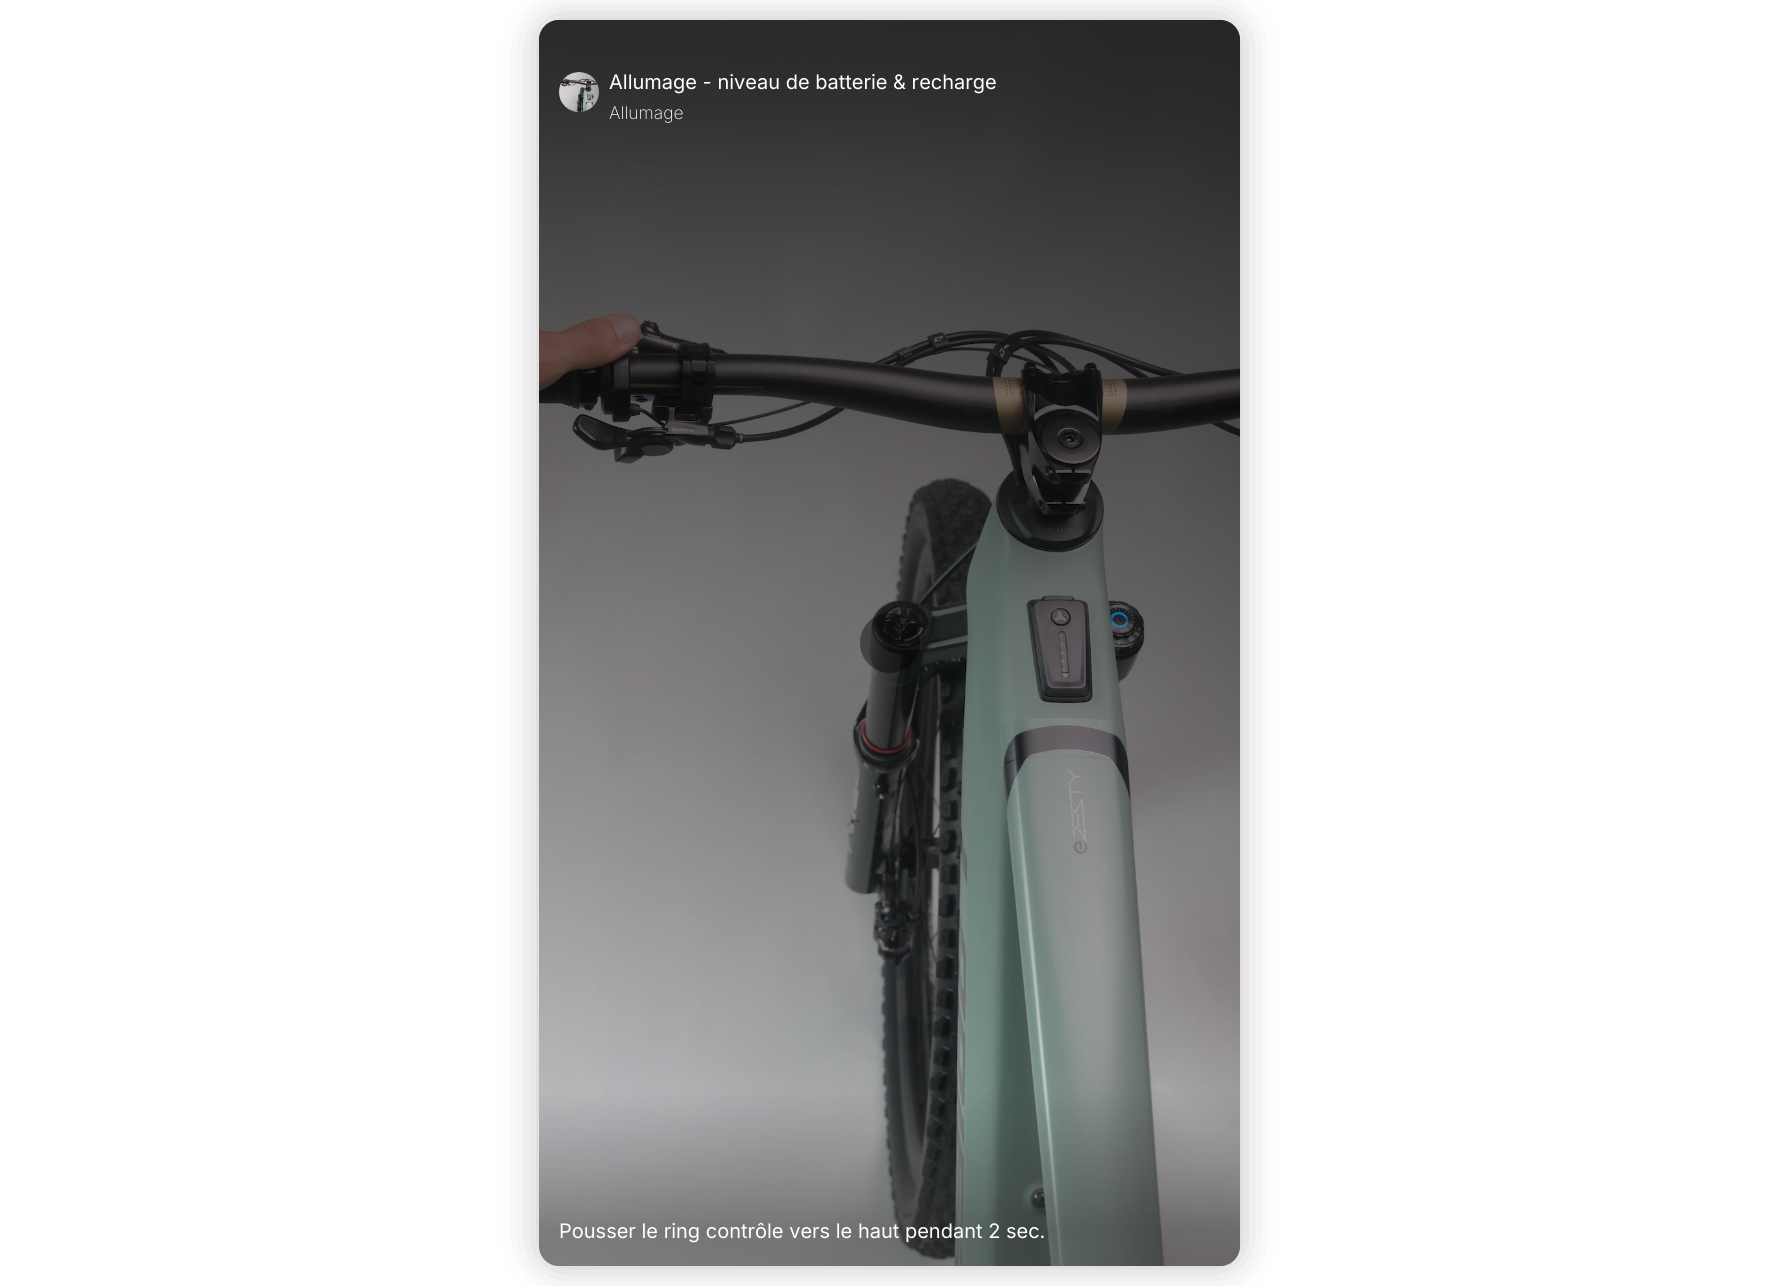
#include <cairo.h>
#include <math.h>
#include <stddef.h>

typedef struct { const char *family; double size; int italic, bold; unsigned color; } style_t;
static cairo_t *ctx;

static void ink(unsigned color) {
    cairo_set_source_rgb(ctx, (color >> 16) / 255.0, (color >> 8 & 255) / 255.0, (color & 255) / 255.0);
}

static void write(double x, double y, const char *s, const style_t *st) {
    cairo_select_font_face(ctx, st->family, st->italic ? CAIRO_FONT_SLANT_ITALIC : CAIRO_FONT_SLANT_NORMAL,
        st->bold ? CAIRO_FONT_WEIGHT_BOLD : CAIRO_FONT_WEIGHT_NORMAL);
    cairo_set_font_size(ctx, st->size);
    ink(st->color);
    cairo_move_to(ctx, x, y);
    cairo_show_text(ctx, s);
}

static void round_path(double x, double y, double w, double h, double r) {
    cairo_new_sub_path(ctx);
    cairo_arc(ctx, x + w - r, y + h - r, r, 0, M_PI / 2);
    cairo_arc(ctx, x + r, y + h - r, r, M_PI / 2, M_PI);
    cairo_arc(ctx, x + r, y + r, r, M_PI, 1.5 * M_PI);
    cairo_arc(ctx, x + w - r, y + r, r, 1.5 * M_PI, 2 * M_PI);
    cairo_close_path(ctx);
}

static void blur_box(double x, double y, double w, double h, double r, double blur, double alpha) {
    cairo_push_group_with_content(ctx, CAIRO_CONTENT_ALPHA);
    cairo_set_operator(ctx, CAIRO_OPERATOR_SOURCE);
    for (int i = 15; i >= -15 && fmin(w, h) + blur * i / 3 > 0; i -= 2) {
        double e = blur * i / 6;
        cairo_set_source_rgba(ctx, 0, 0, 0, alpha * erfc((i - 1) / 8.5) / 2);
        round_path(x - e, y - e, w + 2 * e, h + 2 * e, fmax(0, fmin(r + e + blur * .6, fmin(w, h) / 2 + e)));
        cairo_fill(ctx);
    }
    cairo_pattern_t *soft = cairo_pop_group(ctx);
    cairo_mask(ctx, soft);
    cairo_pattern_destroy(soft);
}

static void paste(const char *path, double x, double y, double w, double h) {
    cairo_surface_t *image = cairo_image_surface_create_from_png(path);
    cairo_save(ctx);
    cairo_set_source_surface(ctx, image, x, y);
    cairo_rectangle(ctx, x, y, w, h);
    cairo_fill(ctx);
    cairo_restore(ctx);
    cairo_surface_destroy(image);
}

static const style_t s1 = {"Inter", 20, 0, 0, 0xffffff};
static const style_t s2 = {"Inter ExtraLight", 17.5, 0, 0, 0xffffff};

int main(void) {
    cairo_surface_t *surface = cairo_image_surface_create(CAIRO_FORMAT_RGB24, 1779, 1286);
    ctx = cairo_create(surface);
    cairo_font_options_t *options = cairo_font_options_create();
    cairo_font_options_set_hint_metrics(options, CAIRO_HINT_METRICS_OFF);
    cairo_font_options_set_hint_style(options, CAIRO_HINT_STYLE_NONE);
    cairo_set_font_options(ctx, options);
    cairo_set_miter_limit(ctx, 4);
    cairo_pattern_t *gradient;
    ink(0xffffff);
    cairo_paint(ctx);
    ink(0x2e2e2e);
    blur_box(539, 20, 701, 1246, 20, 19, 0.3);
    paste("pic1.png", 539, 20, 701, 1246);
    paste("pic2.png", 539, 20, 701, 1246);
    gradient = cairo_pattern_create_linear(889, 20, 890, 1266);
    cairo_pattern_add_color_stop_rgba(gradient, 0, 0, 0, 0, 0.8);
    cairo_pattern_add_color_stop_rgba(gradient, 1, 0, 0, 0, 0);
    cairo_set_source(ctx, gradient);
    cairo_pattern_destroy(gradient);
    round_path(539, 20, 701, 1246, 20);
    cairo_fill(ctx);
    cairo_set_source_rgba(ctx, 0, 0, 0, 0.4);
    cairo_arc(ctx, 890, 643, 30, 0, 2 * M_PI);
    cairo_fill(ctx);
    gradient = cairo_pattern_create_linear(889, 19, 890, 167);
    cairo_pattern_add_color_stop_rgba(gradient, 0, 0.18, 0.18, 0.18, 0.5);
    cairo_pattern_add_color_stop_rgba(gradient, 0.46, 0.18, 0.18, 0.18, 0.3);
    cairo_pattern_add_color_stop_rgba(gradient, 1, 0.18, 0.18, 0.18, 0);
    cairo_set_source(ctx, gradient);
    cairo_pattern_destroy(gradient);
    cairo_new_path(ctx);
    cairo_move_to(ctx, 559, 20);
    cairo_line_to(ctx, 1220, 20);
    cairo_curve_to(ctx, 1231, 20, 1240, 29, 1240, 40);
    cairo_line_to(ctx, 1240, 166);
    cairo_line_to(ctx, 539, 166);
    cairo_line_to(ctx, 539, 40);
    cairo_curve_to(ctx, 539, 29, 548, 20, 559, 20);
    cairo_close_path(ctx);
    cairo_fill(ctx);
    paste("pic3.png", 559, 72, 40, 40);
    write(609, 89, "Allumage - niveau de batterie & recharge", &s1);
    write(609, 119, "Allumage", &s2);
    gradient = cairo_pattern_create_linear(889, 1090, 890, 1267);
    cairo_pattern_add_color_stop_rgba(gradient, 0, 0.18, 0.18, 0.18, 0);
    cairo_pattern_add_color_stop_rgba(gradient, 0.48, 0.18, 0.18, 0.18, 0.3);
    cairo_pattern_add_color_stop_rgba(gradient, 0.79, 0.18, 0.18, 0.18, 0.5);
    cairo_set_source(ctx, gradient);
    cairo_pattern_destroy(gradient);
    cairo_new_path(ctx);
    cairo_move_to(ctx, 539, 1091);
    cairo_line_to(ctx, 1240, 1091);
    cairo_line_to(ctx, 1240, 1246);
    cairo_curve_to(ctx, 1240, 1257, 1231, 1266, 1220, 1266);
    cairo_line_to(ctx, 559, 1266);
    cairo_curve_to(ctx, 548, 1266, 539, 1257, 539, 1246);
    cairo_close_path(ctx);
    cairo_fill(ctx);
    write(559, 1238, "Pousser le ring contrôle vers le haut pendant 2 sec.", &s1);
    cairo_surface_write_to_png(surface, "screenshot.png");
    cairo_font_options_destroy(options);
    cairo_destroy(ctx);
    cairo_surface_destroy(surface);
    return 0;
}
